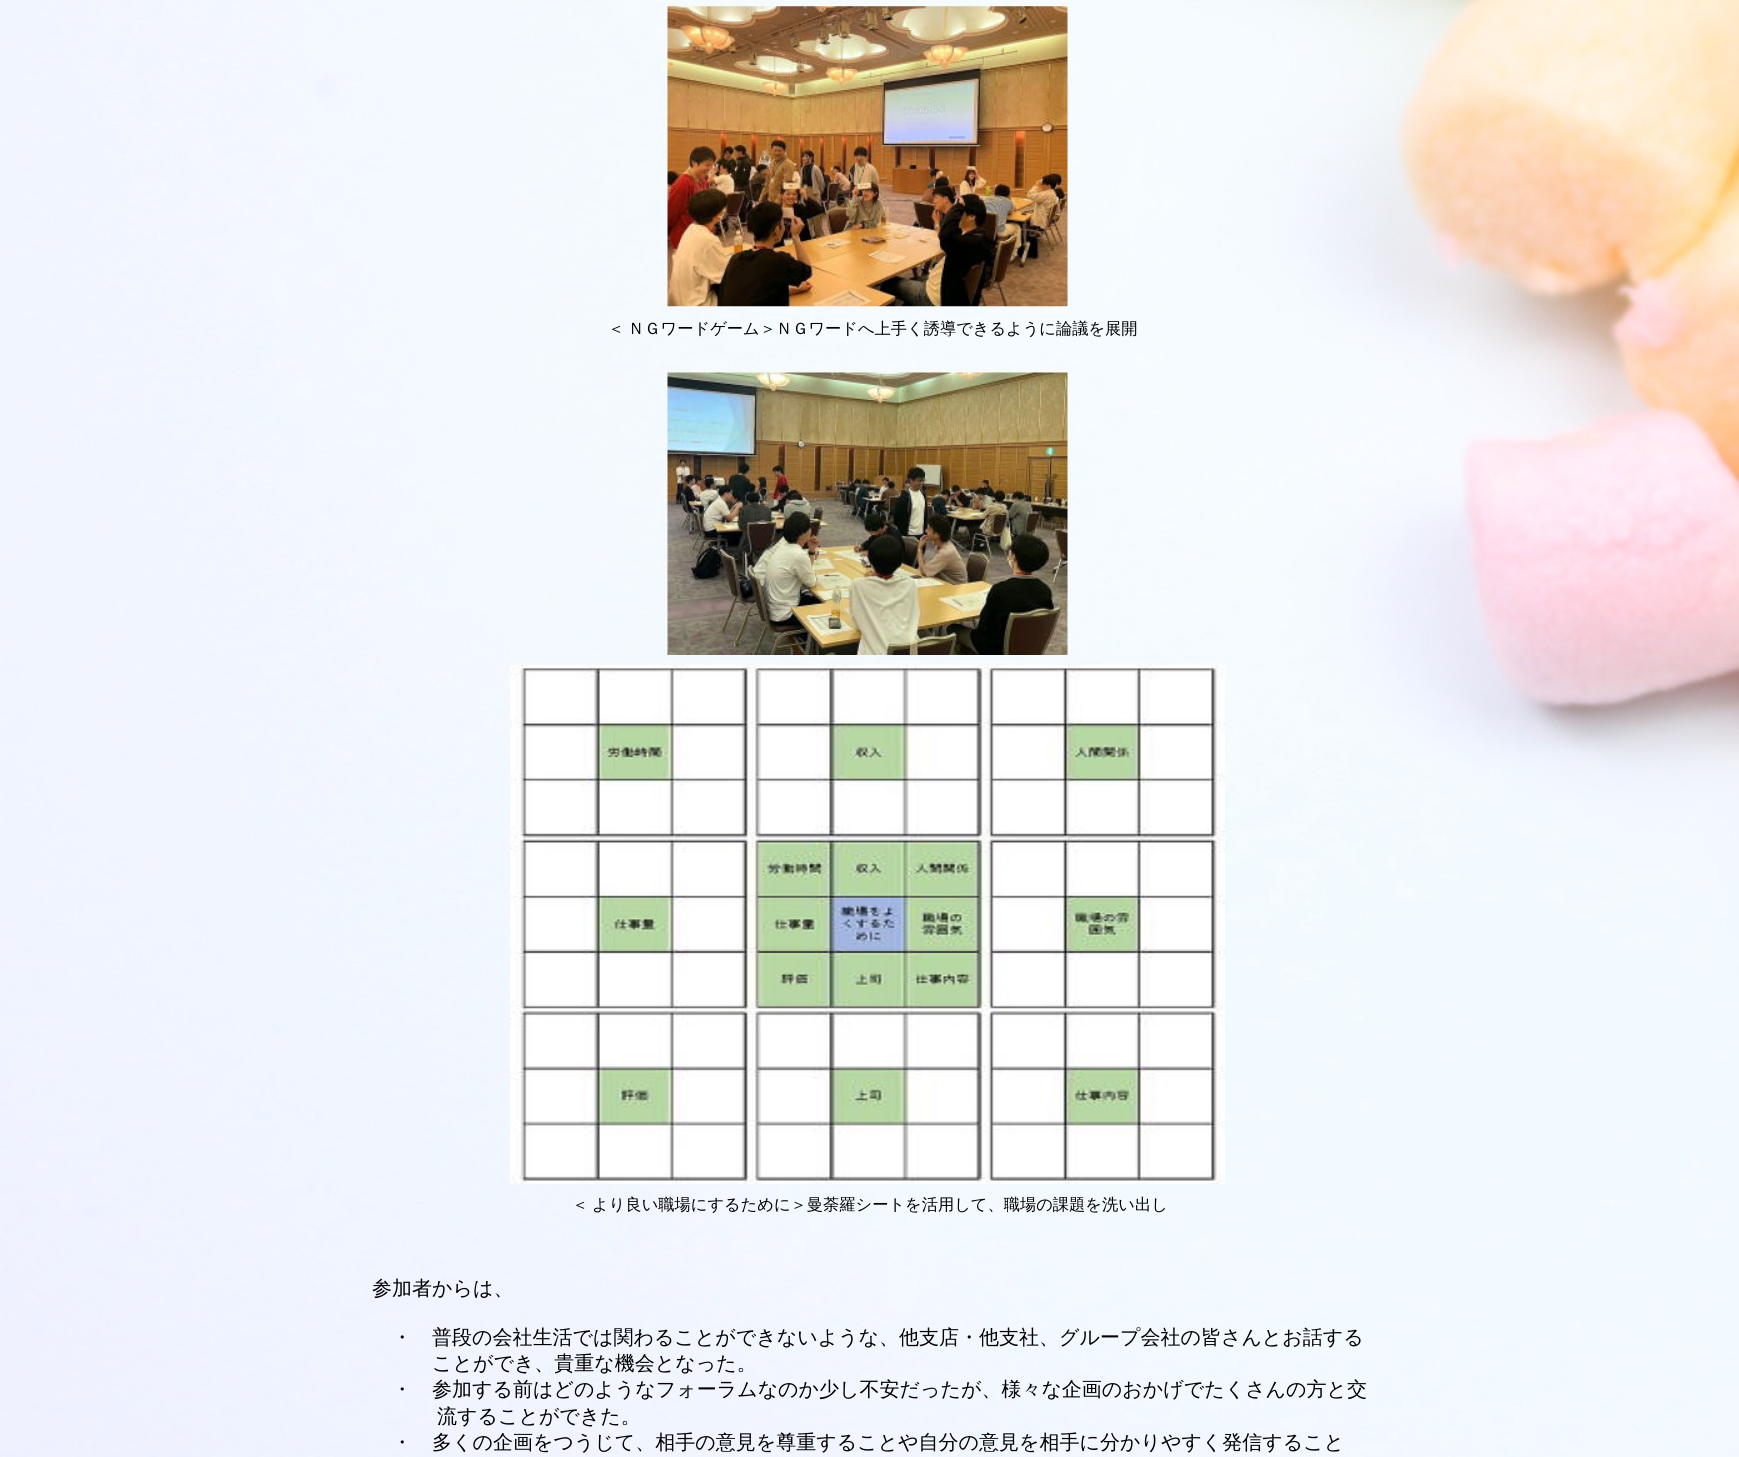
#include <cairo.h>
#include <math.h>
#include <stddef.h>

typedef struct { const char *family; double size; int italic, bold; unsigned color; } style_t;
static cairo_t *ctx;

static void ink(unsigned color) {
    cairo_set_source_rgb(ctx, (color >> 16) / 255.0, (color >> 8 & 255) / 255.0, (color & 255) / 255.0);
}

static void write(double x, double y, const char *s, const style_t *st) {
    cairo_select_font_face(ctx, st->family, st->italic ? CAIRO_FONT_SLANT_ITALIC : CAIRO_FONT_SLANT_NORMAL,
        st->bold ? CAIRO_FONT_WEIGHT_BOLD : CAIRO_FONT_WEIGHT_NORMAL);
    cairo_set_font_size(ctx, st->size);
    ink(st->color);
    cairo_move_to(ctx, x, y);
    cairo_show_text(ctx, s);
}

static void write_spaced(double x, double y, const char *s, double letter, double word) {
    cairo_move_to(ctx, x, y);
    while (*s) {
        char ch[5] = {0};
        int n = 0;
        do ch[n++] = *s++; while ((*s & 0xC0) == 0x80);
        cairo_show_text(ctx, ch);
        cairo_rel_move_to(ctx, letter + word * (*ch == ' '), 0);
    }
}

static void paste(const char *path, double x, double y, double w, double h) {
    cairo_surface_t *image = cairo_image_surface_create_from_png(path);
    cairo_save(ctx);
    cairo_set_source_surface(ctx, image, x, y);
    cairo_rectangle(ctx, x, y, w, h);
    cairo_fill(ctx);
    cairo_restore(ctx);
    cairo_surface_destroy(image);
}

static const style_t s1 = {"WenQuanYi Zen Hei Medium", 20, 0, 0, 0x000000};

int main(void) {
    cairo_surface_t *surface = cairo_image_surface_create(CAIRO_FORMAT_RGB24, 1739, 1457);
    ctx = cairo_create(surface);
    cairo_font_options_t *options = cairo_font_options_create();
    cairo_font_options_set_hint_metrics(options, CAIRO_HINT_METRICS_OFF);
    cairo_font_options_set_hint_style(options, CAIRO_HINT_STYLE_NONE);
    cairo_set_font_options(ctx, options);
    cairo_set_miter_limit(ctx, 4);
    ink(0xffffff);
    cairo_paint(ctx);
    paste("pic1.png", 0, 0, 1739, 1457);
    paste("pic2.png", 667, 6, 401, 301);
    cairo_select_font_face(ctx, "WenQuanYi Zen Hei Medium", CAIRO_FONT_SLANT_NORMAL, CAIRO_FONT_WEIGHT_NORMAL);
    cairo_set_font_size(ctx, 16.25);
    ink(0x000000);
    write_spaced(608, 334, "＜ ＮＧワードゲーム＞ＮＧワードへ上手く誘導できるように論議を展開", 0, -1);
    paste("pic3.png", 667, 372, 401, 283);
    paste("pic4.png", 510, 665, 715, 519);
    write_spaced(572, 1210, "＜ より良い職場にするために＞曼荼羅シートを活用して、職場の課題を洗い出し", 0, -1);
    write(372, 1295, "参加者からは、", &s1);
    write(392, 1344, "・　普段の会社生活では関わることができないような、他支店・他支社、グループ会社の皆さんとお話する", &s1);
    write(432, 1370, "ことができ、貴重な機会となった。", &s1);
    write(392, 1396, "・　参加する前はどのようなフォーラムなのか少し不安だったが、様々な企画のおかげでたくさんの方と交", &s1);
    write(437, 1423, "流することができた。", &s1);
    write(392, 1449, "・　多くの企画をつうじて、相手の意見を尊重することや自分の意見を相手に分かりやすく発信すること", &s1);
    cairo_surface_write_to_png(surface, "screenshot.png");
    cairo_font_options_destroy(options);
    cairo_destroy(ctx);
    cairo_surface_destroy(surface);
    return 0;
}
